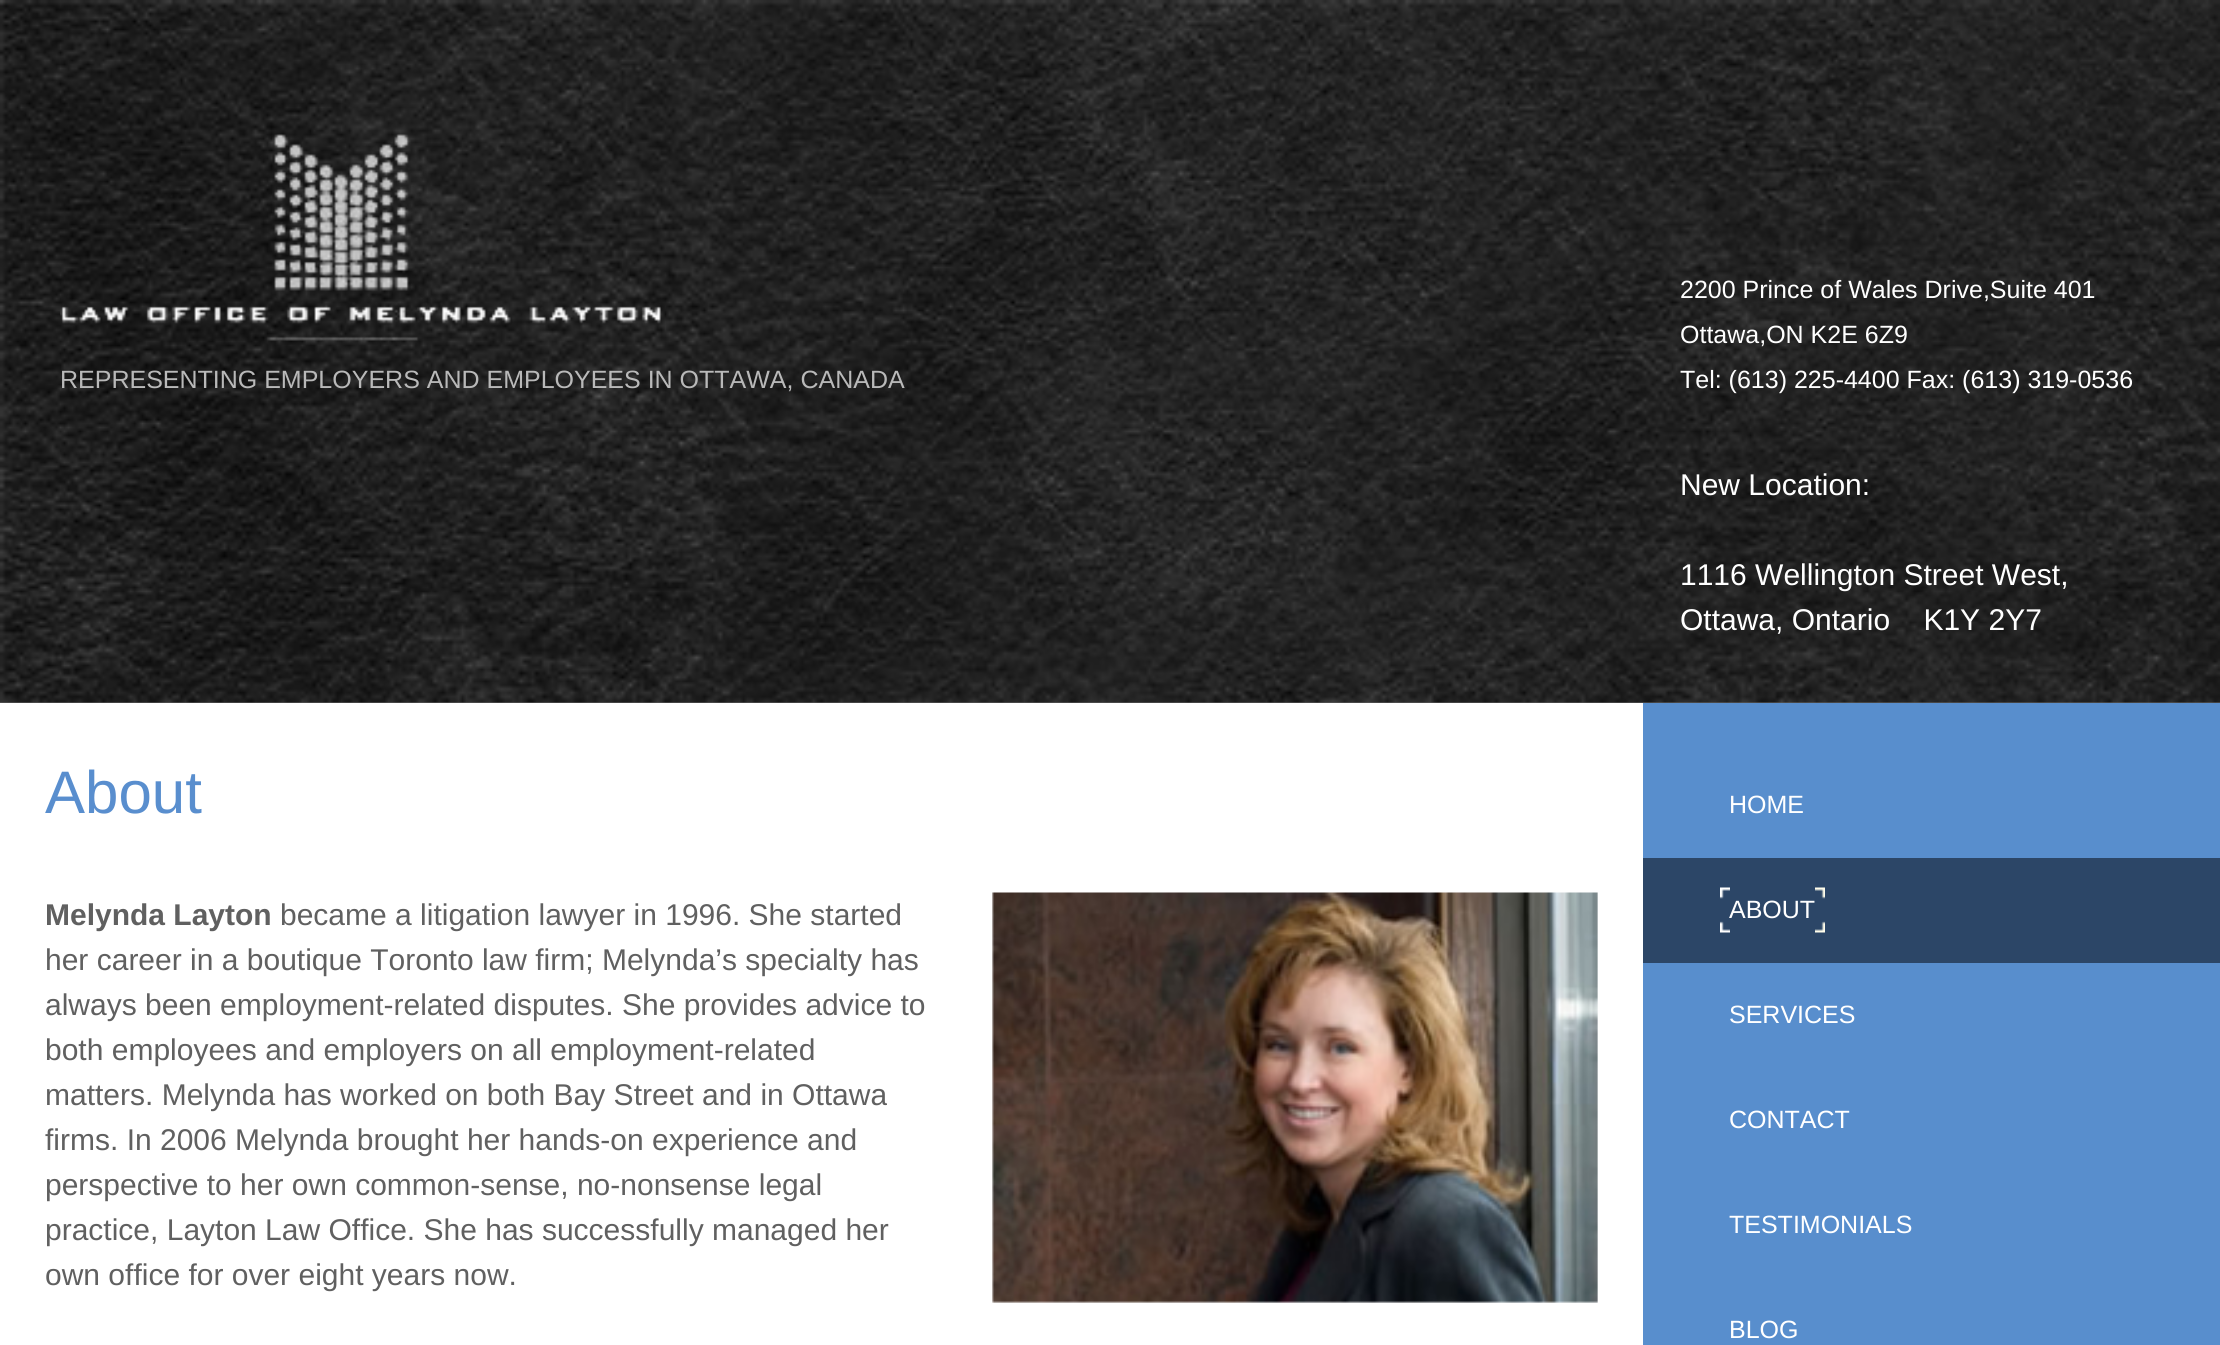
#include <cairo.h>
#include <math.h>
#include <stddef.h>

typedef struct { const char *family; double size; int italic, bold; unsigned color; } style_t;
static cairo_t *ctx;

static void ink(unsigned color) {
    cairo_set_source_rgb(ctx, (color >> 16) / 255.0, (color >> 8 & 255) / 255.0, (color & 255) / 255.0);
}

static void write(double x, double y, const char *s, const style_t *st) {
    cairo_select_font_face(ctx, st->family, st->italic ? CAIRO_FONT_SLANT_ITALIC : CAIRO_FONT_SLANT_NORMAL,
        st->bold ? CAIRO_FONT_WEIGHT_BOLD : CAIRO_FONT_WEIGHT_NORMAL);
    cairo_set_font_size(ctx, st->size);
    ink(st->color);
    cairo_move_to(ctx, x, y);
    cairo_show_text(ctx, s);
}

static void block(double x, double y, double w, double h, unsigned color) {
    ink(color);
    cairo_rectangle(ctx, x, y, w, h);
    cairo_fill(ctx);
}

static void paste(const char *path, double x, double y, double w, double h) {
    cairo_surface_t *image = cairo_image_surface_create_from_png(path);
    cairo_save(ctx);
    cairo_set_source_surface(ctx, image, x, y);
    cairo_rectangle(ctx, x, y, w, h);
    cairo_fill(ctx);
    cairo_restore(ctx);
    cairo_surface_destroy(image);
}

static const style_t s1 = {"Liberation Sans", 25, 0, 0, 0xb9b9b9};
static const style_t s2 = {"Liberation Sans", 25, 0, 0, 0xffffff};
static const style_t s3 = {"Liberation Sans", 30, 0, 0, 0xffffff};
static const style_t s4 = {"Liberation Sans", 60, 0, 0, 0x598ece};
static const style_t s5 = {"Liberation Sans", 30, 0, 1, 0x606060};
static const style_t s6 = {"Liberation Sans", 30, 0, 0, 0x606060};

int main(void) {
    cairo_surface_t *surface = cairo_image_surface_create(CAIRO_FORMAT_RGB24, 2220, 1345);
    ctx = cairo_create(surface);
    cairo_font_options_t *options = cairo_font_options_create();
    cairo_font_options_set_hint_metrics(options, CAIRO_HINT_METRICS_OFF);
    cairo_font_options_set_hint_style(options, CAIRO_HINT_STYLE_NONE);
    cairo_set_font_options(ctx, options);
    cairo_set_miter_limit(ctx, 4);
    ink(0x666666);
    cairo_paint(ctx);
    paste("pic1.png", 0, 0, 2220, 703);
    paste("pic2.png", 60, 134, 601, 207);
    write(60, 388, "REPRESENTING EMPLOYERS AND EMPLOYEES IN OTTAWA, CANADA", &s1);
    write(1680, 298, "2200 Prince of Wales Drive,Suite 401", &s2);
    write(1680, 343, "Ottawa,ON K2E 6Z9", &s2);
    write(1680, 388, "Tel: (613) 225-4400 Fax: (613) 319-0536", &s2);
    write(1680, 495, "New Location:", &s3);
    write(1680, 585, "1116 Wellington Street West,", &s3);
    write(1680, 630, "Ottawa, Ontario    K1Y 2Y7", &s3);
    block(0, 703, 1643, 642, 0xffffff);
    write(45, 813, "About", &s4);
    write(45, 925, "Melynda Layton", &s5);
    write(280, 925, "became a litigation lawyer in 1996. She started", &s6);
    write(45, 970, "her career in a boutique Toronto law firm; Melynda’s specialty has", &s6);
    write(45, 1015, "always been employment-related disputes. She provides advice to", &s6);
    write(45, 1060, "both employees and employers on all employment-related", &s6);
    write(45, 1105, "matters. Melynda has worked on both Bay Street and in Ottawa", &s6);
    write(45, 1150, "firms. In 2006 Melynda brought her hands-on experience and", &s6);
    write(45, 1195, "perspective to her own common-sense, no-nonsense legal", &s6);
    write(45, 1240, "practice, Layton Law Office. She has successfully managed her", &s6);
    write(45, 1285, "own office for over eight years now.", &s6);
    paste("pic3.png", 992, 892, 606, 411);
    block(1643, 703, 577, 642, 0x588ecd);
    write(1729, 813, "HOME", &s2);
    block(1643, 858, 577, 105, 0x2c4667);
    write(1729, 918, "ABOUT", &s2);
    paste("pic4.png", 1720, 887, 10, 46);
    paste("pic5.png", 1815, 887, 10, 46);
    write(1729, 1023, "SERVICES", &s2);
    write(1729, 1128, "CONTACT", &s2);
    write(1729, 1233, "TESTIMONIALS", &s2);
    write(1729, 1338, "BLOG", &s2);
    cairo_surface_write_to_png(surface, "screenshot.png");
    cairo_font_options_destroy(options);
    cairo_destroy(ctx);
    cairo_surface_destroy(surface);
    return 0;
}
